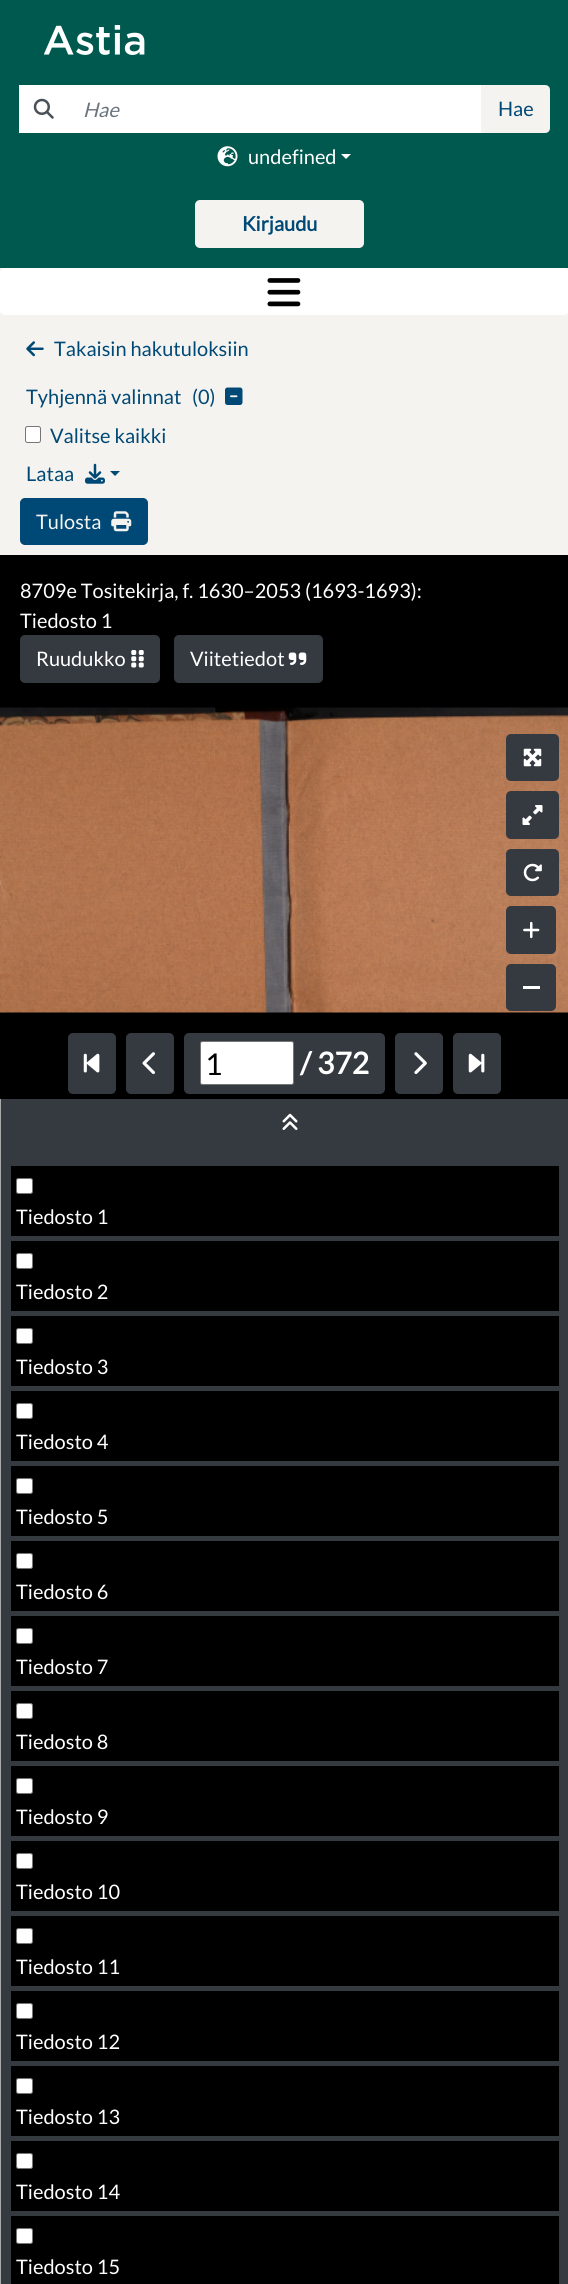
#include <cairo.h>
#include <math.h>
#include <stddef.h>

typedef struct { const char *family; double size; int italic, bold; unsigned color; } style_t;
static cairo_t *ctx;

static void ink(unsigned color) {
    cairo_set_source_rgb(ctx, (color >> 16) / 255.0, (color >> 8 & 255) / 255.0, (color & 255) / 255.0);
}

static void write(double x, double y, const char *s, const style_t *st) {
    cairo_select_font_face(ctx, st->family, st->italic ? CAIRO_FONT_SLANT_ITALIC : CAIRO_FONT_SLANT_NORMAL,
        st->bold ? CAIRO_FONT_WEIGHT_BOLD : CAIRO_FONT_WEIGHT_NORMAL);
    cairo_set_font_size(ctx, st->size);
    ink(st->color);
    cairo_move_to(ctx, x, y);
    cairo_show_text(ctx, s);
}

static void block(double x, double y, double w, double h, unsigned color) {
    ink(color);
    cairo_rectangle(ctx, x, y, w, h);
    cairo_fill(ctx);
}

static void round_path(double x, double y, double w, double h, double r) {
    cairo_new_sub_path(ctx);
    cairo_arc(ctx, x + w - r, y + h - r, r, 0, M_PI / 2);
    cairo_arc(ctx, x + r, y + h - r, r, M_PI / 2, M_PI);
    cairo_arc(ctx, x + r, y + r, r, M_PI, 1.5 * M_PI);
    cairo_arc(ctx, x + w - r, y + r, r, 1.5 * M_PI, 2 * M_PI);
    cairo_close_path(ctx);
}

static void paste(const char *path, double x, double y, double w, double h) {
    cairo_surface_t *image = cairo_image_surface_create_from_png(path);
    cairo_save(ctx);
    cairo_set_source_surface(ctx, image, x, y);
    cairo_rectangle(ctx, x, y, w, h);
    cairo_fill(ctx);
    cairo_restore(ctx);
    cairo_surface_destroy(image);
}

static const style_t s1 = {"Lato", 20, 0, 0, 0x004976};
static const style_t s2 = {"Lato", 20, 1, 0, 0x6c757d};
static const style_t s3 = {"Lato", 20, 0, 0, 0xffffff};
static const style_t s4 = {"Lato", 20, 0, 1, 0x004976};
static const style_t s5 = {"Lato", 20, 0, 0, 0xf4f3ef};
static const style_t s6 = {"Lato", 30, 0, 0, 0x000000};
static const style_t s7 = {"Lato", 30, 0, 1, 0xffffff};

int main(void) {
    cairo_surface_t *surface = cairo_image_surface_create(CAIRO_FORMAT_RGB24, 568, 2284);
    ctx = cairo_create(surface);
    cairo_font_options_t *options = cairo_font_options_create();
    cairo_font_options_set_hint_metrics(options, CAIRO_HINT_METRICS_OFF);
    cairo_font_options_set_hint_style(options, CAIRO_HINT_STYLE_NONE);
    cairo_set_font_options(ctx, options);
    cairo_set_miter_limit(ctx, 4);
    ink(0xf4f3ef);
    cairo_paint(ctx);
    block(0, 0, 568, 268, 0x00594f);
    paste("pic1.png", 44, 25, 101, 30);
    block(19, 85, 462, 48, 0xffffff);
    paste("pic2.png", 33, 98, 21, 21);
    ink(0xf4f3ef);
    cairo_new_path(ctx);
    cairo_move_to(ctx, 481, 85);
    cairo_line_to(ctx, 545, 85);
    cairo_curve_to(ctx, 548, 85, 550, 87, 550, 90);
    cairo_line_to(ctx, 550, 128);
    cairo_curve_to(ctx, 550, 131, 548, 133, 545, 133);
    cairo_line_to(ctx, 481, 133);
    cairo_close_path(ctx);
    cairo_fill(ctx);
    write(498, 116, "Hae", &s1);
    write(83, 117, "Hae", &s2);
    paste("pic3.png", 217, 146, 21, 21);
    write(248, 164, "undefined", &s3);
    cairo_new_path(ctx);
    cairo_move_to(ctx, 341, 154);
    cairo_line_to(ctx, 351, 154);
    cairo_line_to(ctx, 346, 159);
    cairo_close_path(ctx);
    cairo_fill(ctx);
    ink(0xf4f3ef);
    round_path(195, 200, 169, 48, 5);
    cairo_fill(ctx);
    write(242, 231, "Kirjaudu", &s4);
    ink(0xffffff);
    round_path(0, 268, 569, 47, 5);
    cairo_fill(ctx);
    paste("pic4.png", 267, 278, 34, 29);
    paste("pic5.png", 26, 341, 18, 16);
    write(54, 356, "Takaisin hakutuloksiin", &s1);
    write(26, 404, "Tyhjennä valinnat", &s1);
    write(192, 404, "(0)", &s1);
    paste("pic6.png", 225, 387, 18, 18);
    ink(0xffffff);
    round_path(25.5, 426.5, 15, 16, 2);
    cairo_fill_preserve(ctx);
    ink(0x767676);
    cairo_set_line_width(ctx, 1);
    cairo_stroke(ctx);
    write(50, 443, "Valitse kaikki", &s1);
    write(26, 481, "Lataa", &s1);
    paste("pic7.png", 85, 463, 20, 21);
    cairo_new_path(ctx);
    cairo_move_to(ctx, 110, 471);
    cairo_line_to(ctx, 120, 471);
    cairo_line_to(ctx, 115, 476);
    cairo_close_path(ctx);
    cairo_fill(ctx);
    round_path(20, 498, 128, 47, 5);
    cairo_fill(ctx);
    write(36, 529, "Tulosta", &s5);
    paste("pic8.png", 111, 511, 21, 21);
    block(0, 555, 568, 544, 0x000000);
    write(20, 598, "8709e Tositekirja, f. 1630–2053 (1693-1693):", &s3);
    write(20, 628, "Tiedosto 1", &s3);
    ink(0x343a40);
    round_path(20, 635, 140, 48, 5);
    cairo_fill(ctx);
    write(36, 666, "Ruudukko", &s3);
    paste("pic9.png", 131, 650, 13, 18);
    ink(0x343a40);
    round_path(174, 635, 149, 48, 5);
    cairo_fill(ctx);
    write(190, 666, "Viitetiedot", &s3);
    paste("pic10.png", 288, 652, 19, 13);
    paste("pic11.png", 0, 707, 568, 306);
    ink(0x343a40);
    round_path(506, 734, 53, 47, 5);
    cairo_fill(ctx);
    paste("pic12.png", 523, 748, 19, 19);
    round_path(506, 791, 53, 48, 5);
    cairo_fill(ctx);
    paste("pic13.png", 522, 805, 21, 20);
    round_path(506, 849, 53, 47, 5);
    cairo_fill(ctx);
    paste("pic14.png", 523, 863, 19, 19);
    round_path(506, 906, 50, 48, 5);
    cairo_fill(ctx);
    paste("pic15.png", 523, 921, 17, 18);
    round_path(506, 964, 50, 47, 5);
    cairo_fill(ctx);
    block(523, 986, 17, 3, 0xffffff);
    ink(0x343a40);
    round_path(68, 1033, 48, 61, 5);
    cairo_fill(ctx);
    paste("pic16.png", 83, 1053, 17, 20);
    round_path(126, 1033, 48, 61, 5);
    cairo_fill(ctx);
    paste("pic17.png", 142, 1052, 13, 22);
    round_path(184, 1033, 201, 61, 5);
    cairo_fill(ctx);
    ink(0xffffff);
    round_path(200.5, 1041.5, 93, 43, 2);
    cairo_fill_preserve(ctx);
    ink(0x767676);
    cairo_stroke(ctx);
    write(205, 1075, "1", &s6);
    write(300, 1074, "/ 372", &s7);
    ink(0x343a40);
    round_path(395, 1033, 48, 61, 5);
    cairo_fill(ctx);
    paste("pic18.png", 414, 1052, 13, 22);
    round_path(453, 1033, 48, 61, 5);
    cairo_fill(ctx);
    paste("pic19.png", 468, 1053, 17, 20);
    block(1, 1099, 567, 1185, 0x343a40);
    block(0, 1099, 1, 1185, 0xaaaaaa);
    paste("pic20.png", 282, 1113, 16, 17);
    block(11, 1166, 548, 70, 0x000000);
    ink(0xffffff);
    round_path(16.5, 1178.5, 16, 15, 2);
    cairo_fill_preserve(ctx);
    ink(0x767676);
    cairo_stroke(ctx);
    write(16, 1224, "Tiedosto 1", &s3);
    block(11, 1241, 548, 70, 0x000000);
    ink(0xffffff);
    round_path(16.5, 1253.5, 16, 15, 2);
    cairo_fill_preserve(ctx);
    ink(0x767676);
    cairo_stroke(ctx);
    write(16, 1299, "Tiedosto 2", &s3);
    block(11, 1316, 548, 70, 0x000000);
    ink(0xffffff);
    round_path(16.5, 1328.5, 16, 15, 2);
    cairo_fill_preserve(ctx);
    ink(0x767676);
    cairo_stroke(ctx);
    write(16, 1374, "Tiedosto 3", &s3);
    block(11, 1391, 548, 70, 0x000000);
    ink(0xffffff);
    round_path(16.5, 1403.5, 16, 15, 2);
    cairo_fill_preserve(ctx);
    ink(0x767676);
    cairo_stroke(ctx);
    write(16, 1449, "Tiedosto 4", &s3);
    block(11, 1466, 548, 70, 0x000000);
    ink(0xffffff);
    round_path(16.5, 1478.5, 16, 15, 2);
    cairo_fill_preserve(ctx);
    ink(0x767676);
    cairo_stroke(ctx);
    write(16, 1524, "Tiedosto 5", &s3);
    block(11, 1541, 548, 70, 0x000000);
    ink(0xffffff);
    round_path(16.5, 1553.5, 16, 15, 2);
    cairo_fill_preserve(ctx);
    ink(0x767676);
    cairo_stroke(ctx);
    write(16, 1599, "Tiedosto 6", &s3);
    block(11, 1616, 548, 70, 0x000000);
    ink(0xffffff);
    round_path(16.5, 1628.5, 16, 15, 2);
    cairo_fill_preserve(ctx);
    ink(0x767676);
    cairo_stroke(ctx);
    write(16, 1674, "Tiedosto 7", &s3);
    block(11, 1691, 548, 70, 0x000000);
    ink(0xffffff);
    round_path(16.5, 1703.5, 16, 15, 2);
    cairo_fill_preserve(ctx);
    ink(0x767676);
    cairo_stroke(ctx);
    write(16, 1749, "Tiedosto 8", &s3);
    block(11, 1766, 548, 70, 0x000000);
    ink(0xffffff);
    round_path(16.5, 1778.5, 16, 15, 2);
    cairo_fill_preserve(ctx);
    ink(0x767676);
    cairo_stroke(ctx);
    write(16, 1824, "Tiedosto 9", &s3);
    block(11, 1841, 548, 70, 0x000000);
    ink(0xffffff);
    round_path(16.5, 1853.5, 16, 15, 2);
    cairo_fill_preserve(ctx);
    ink(0x767676);
    cairo_stroke(ctx);
    write(16, 1899, "Tiedosto 10", &s3);
    block(11, 1916, 548, 70, 0x000000);
    ink(0xffffff);
    round_path(16.5, 1928.5, 16, 15, 2);
    cairo_fill_preserve(ctx);
    ink(0x767676);
    cairo_stroke(ctx);
    write(16, 1974, "Tiedosto 11", &s3);
    block(11, 1991, 548, 70, 0x000000);
    ink(0xffffff);
    round_path(16.5, 2003.5, 16, 15, 2);
    cairo_fill_preserve(ctx);
    ink(0x767676);
    cairo_stroke(ctx);
    write(16, 2049, "Tiedosto 12", &s3);
    block(11, 2066, 548, 70, 0x000000);
    ink(0xffffff);
    round_path(16.5, 2078.5, 16, 15, 2);
    cairo_fill_preserve(ctx);
    ink(0x767676);
    cairo_stroke(ctx);
    write(16, 2124, "Tiedosto 13", &s3);
    block(11, 2141, 548, 70, 0x000000);
    ink(0xffffff);
    round_path(16.5, 2153.5, 16, 15, 2);
    cairo_fill_preserve(ctx);
    ink(0x767676);
    cairo_stroke(ctx);
    write(16, 2199, "Tiedosto 14", &s3);
    block(11, 2216, 548, 68, 0x000000);
    ink(0xffffff);
    round_path(16.5, 2228.5, 16, 15, 2);
    cairo_fill_preserve(ctx);
    ink(0x767676);
    cairo_stroke(ctx);
    write(16, 2274, "Tiedosto 15", &s3);
    cairo_surface_write_to_png(surface, "screenshot.png");
    cairo_font_options_destroy(options);
    cairo_destroy(ctx);
    cairo_surface_destroy(surface);
    return 0;
}
